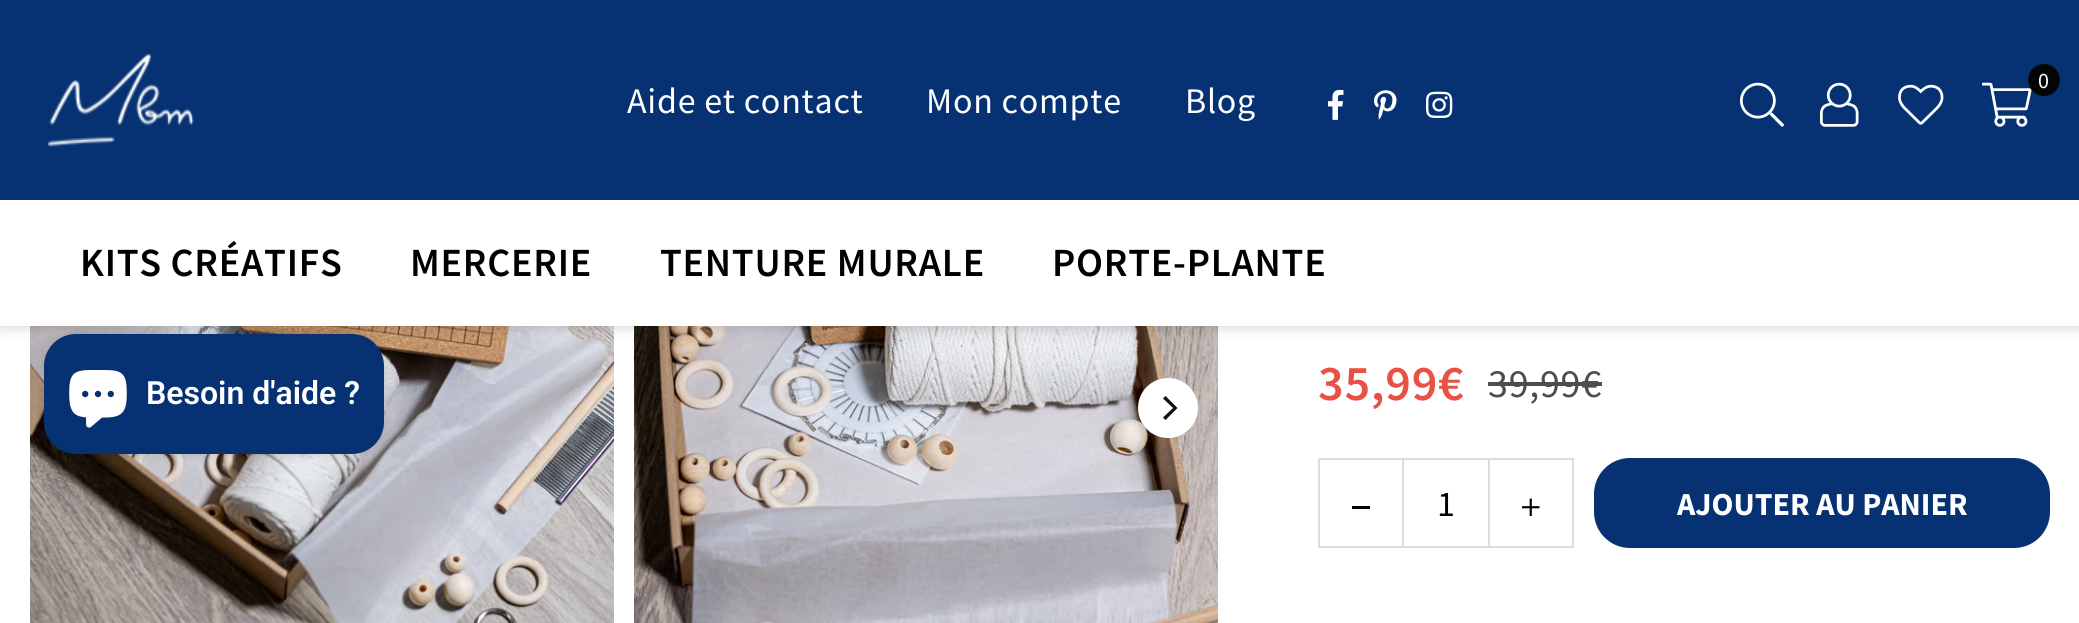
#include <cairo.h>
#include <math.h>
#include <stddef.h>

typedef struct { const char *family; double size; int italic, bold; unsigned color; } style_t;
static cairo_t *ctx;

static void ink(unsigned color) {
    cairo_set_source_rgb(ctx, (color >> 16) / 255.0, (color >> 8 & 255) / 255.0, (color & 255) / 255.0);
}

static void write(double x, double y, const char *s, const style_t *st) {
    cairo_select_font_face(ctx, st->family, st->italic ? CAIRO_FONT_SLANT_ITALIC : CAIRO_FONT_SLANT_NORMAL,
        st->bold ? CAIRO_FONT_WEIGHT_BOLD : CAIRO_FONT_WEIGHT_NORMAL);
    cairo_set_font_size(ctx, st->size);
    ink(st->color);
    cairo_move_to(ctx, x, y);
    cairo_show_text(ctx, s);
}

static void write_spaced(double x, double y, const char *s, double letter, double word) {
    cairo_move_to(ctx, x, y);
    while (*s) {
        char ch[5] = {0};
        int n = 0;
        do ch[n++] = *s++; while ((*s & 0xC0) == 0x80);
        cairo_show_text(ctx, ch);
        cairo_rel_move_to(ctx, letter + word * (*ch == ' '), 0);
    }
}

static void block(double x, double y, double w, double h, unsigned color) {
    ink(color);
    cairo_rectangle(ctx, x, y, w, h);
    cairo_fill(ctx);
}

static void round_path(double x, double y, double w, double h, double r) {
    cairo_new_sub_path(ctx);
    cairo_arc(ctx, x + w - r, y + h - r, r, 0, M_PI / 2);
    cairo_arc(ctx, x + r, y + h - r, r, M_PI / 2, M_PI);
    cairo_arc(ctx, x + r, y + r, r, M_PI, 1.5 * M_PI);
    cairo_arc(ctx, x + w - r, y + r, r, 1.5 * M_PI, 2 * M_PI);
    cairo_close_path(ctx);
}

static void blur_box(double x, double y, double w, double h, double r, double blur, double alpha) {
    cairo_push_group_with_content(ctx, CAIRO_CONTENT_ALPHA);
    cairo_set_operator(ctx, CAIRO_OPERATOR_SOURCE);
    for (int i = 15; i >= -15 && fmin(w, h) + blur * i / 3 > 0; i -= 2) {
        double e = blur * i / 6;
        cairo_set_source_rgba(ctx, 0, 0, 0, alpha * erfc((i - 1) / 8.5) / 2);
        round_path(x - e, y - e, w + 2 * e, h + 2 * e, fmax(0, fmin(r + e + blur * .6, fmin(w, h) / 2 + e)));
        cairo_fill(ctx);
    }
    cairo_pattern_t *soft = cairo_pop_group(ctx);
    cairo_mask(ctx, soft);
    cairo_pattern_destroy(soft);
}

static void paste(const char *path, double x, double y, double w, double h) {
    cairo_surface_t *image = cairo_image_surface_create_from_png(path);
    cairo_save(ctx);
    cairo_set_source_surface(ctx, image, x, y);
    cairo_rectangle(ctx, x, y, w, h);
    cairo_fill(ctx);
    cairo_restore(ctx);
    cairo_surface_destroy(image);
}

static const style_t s1 = {"Roboto SemiBold", 32, 0, 0, 0xffffff};
static const style_t s2 = {"Source Sans Pro", 36, 0, 0, 0x000000};
static const style_t s3 = {"Source Sans Pro", 32, 0, 1, 0xffffff};

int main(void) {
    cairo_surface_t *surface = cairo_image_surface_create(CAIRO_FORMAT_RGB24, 2079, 623);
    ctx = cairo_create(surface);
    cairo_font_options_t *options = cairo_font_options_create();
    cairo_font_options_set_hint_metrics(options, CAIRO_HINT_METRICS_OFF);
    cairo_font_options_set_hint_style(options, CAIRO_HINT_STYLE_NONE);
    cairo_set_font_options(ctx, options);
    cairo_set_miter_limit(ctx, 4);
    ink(0xffffff);
    cairo_paint(ctx);
    paste("pic10.png", 30, 326, 584, 297);
    paste("pic11.png", 634, 326, 584, 297);
    ink(0x000000);
    blur_box(0, 0, 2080, 326, 0, 7, 0.2);
    block(0, 0, 2079, 200, 0x063274);
    block(0, 200, 2079, 126, 0xffffff);
    paste("pic1.png", 47, 54, 147, 93);
    paste("pic2.png", 1740, 82, 44, 45);
    paste("pic3.png", 1820, 82, 39, 45);
    paste("pic4.png", 1898, 84, 46, 41);
    paste("pic5.png", 1982, 82, 50, 45);
    ink(0x030505);
    cairo_arc(ctx, 2044, 80, 16, 0, 2 * M_PI);
    cairo_fill(ctx);
    cairo_select_font_face(ctx, "Source Sans Pro", CAIRO_FONT_SLANT_NORMAL, CAIRO_FONT_WEIGHT_NORMAL);
    cairo_set_font_size(ctx, 22);
    ink(0xffffff);
    write_spaced(2038, 88, "0", 0.75, 0);
    cairo_set_font_size(ctx, 36);
    write_spaced(627, 113, "Aide et contact", 0.75, 0);
    write_spaced(926, 113, "Mon compte", 0.75, 0);
    write_spaced(1185, 113, "Blog", 0.75, 0);
    paste("pic6.png", 1328, 89, 16, 31);
    paste("pic7.png", 1374, 90, 23, 30);
    paste("pic8.png", 1426, 91, 27, 27);
    cairo_select_font_face(ctx, "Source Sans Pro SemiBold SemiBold", CAIRO_FONT_SLANT_NORMAL, CAIRO_FONT_WEIGHT_NORMAL);
    cairo_set_font_size(ctx, 40);
    ink(0x000000);
    write_spaced(80, 276, "KITS CRÉATIFS", 0.75, 0);
    write_spaced(410, 276, "MERCERIE", 0.75, 0);
    write_spaced(660, 276, "TENTURE MURALE", 0.75, 0);
    write_spaced(1052, 276, "PORTE-PLANTE", 0.75, 0);
    ink(0x000000);
    blur_box(44, 334, 340, 120, 32, 5, 0.15);
    ink(0x063274);
    round_path(44, 334, 340, 120, 32);
    cairo_fill(ctx);
    paste("pic9.png", 69, 370, 58, 58);
    write(146, 404, "Besoin d'aide ?", &s1);
    cairo_new_path(ctx);
    cairo_arc(ctx, 1168, 408, 30, 0, 2 * M_PI);
    cairo_fill(ctx);
    ink(0x111111);
    cairo_new_path(ctx);
    cairo_move_to(ctx, 1177.5, 408);
    cairo_line_to(ctx, 1165.5, 396);
    cairo_line_to(ctx, 1163, 398.5);
    cairo_line_to(ctx, 1173, 408);
    cairo_line_to(ctx, 1163, 417.5);
    cairo_line_to(ctx, 1165.5, 420);
    cairo_close_path(ctx);
    cairo_fill(ctx);
    cairo_select_font_face(ctx, "Source Sans Pro SemiBold SemiBold", CAIRO_FONT_SLANT_NORMAL, CAIRO_FONT_WEIGHT_NORMAL);
    cairo_set_font_size(ctx, 50);
    ink(0xe95144);
    write_spaced(1318, 400, "35,99€", 0.75, 0);
    cairo_select_font_face(ctx, "Source Sans Pro", CAIRO_FONT_SLANT_NORMAL, CAIRO_FONT_WEIGHT_NORMAL);
    cairo_set_font_size(ctx, 40);
    ink(0x4d4d4d);
    write_spaced(1488, 397, "39,99€", 0.75, 0);
    block(1488, 382, 114, 4, 0x4d4d4d);
    cairo_rectangle(ctx, 1319, 459, 254, 88);
    ink(0xdddddd);
    cairo_stroke(ctx);
    block(1402, 460, 2, 86, 0xdddddd);
    block(1352, 506, 18, 3, 0x000000);
    write(1437, 516, "1", &s2);
    block(1488, 460, 2, 86, 0xdddddd);
    paste("pic12.png", 1522, 498, 18, 18);
    ink(0x063274);
    round_path(1595, 459, 454, 88, 35);
    cairo_fill_preserve(ctx);
    cairo_stroke(ctx);
    write(1677, 515, "AJOUTER AU PANIER", &s3);
    cairo_surface_write_to_png(surface, "screenshot.png");
    cairo_font_options_destroy(options);
    cairo_destroy(ctx);
    cairo_surface_destroy(surface);
    return 0;
}
